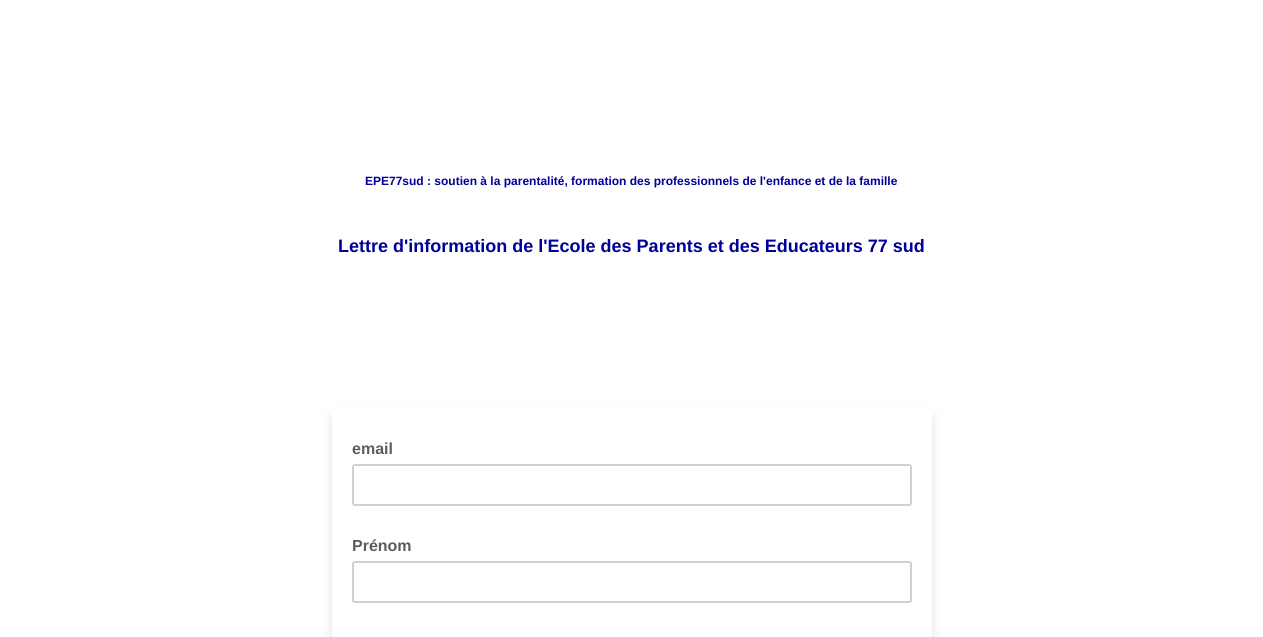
#include <cairo.h>
#include <math.h>
#include <stddef.h>

typedef struct { const char *family; double size; int italic, bold; unsigned color; } style_t;
static cairo_t *ctx;

static void ink(unsigned color) {
    cairo_set_source_rgb(ctx, (color >> 16) / 255.0, (color >> 8 & 255) / 255.0, (color & 255) / 255.0);
}

static void write(double x, double y, const char *s, const style_t *st) {
    cairo_select_font_face(ctx, st->family, st->italic ? CAIRO_FONT_SLANT_ITALIC : CAIRO_FONT_SLANT_NORMAL,
        st->bold ? CAIRO_FONT_WEIGHT_BOLD : CAIRO_FONT_WEIGHT_NORMAL);
    cairo_set_font_size(ctx, st->size);
    ink(st->color);
    cairo_move_to(ctx, x, y);
    cairo_show_text(ctx, s);
}

static void round_path(double x, double y, double w, double h, double r) {
    cairo_new_sub_path(ctx);
    cairo_arc(ctx, x + w - r, y + h - r, r, 0, M_PI / 2);
    cairo_arc(ctx, x + r, y + h - r, r, M_PI / 2, M_PI);
    cairo_arc(ctx, x + r, y + r, r, M_PI, 1.5 * M_PI);
    cairo_arc(ctx, x + w - r, y + r, r, 1.5 * M_PI, 2 * M_PI);
    cairo_close_path(ctx);
}

static void blur_box(double x, double y, double w, double h, double r, double blur, double alpha) {
    cairo_push_group_with_content(ctx, CAIRO_CONTENT_ALPHA);
    cairo_set_operator(ctx, CAIRO_OPERATOR_SOURCE);
    for (int i = 15; i >= -15 && fmin(w, h) + blur * i / 3 > 0; i -= 2) {
        double e = blur * i / 6;
        cairo_set_source_rgba(ctx, 0, 0, 0, alpha * erfc((i - 1) / 8.5) / 2);
        round_path(x - e, y - e, w + 2 * e, h + 2 * e, fmax(0, fmin(r + e + blur * .6, fmin(w, h) / 2 + e)));
        cairo_fill(ctx);
    }
    cairo_pattern_t *soft = cairo_pop_group(ctx);
    cairo_mask(ctx, soft);
    cairo_pattern_destroy(soft);
}

static const style_t s1 = {"Liberation Sans", 12, 0, 1, 0x000099};
static const style_t s2 = {"Liberation Sans", 18, 0, 1, 0x000099};
static const style_t s3 = {"Liberation Sans", 16, 0, 1, 0x5d5d5d};

int main(void) {
    cairo_surface_t *surface = cairo_image_surface_create(CAIRO_FORMAT_RGB24, 1263, 637);
    ctx = cairo_create(surface);
    cairo_font_options_t *options = cairo_font_options_create();
    cairo_font_options_set_hint_metrics(options, CAIRO_HINT_METRICS_OFF);
    cairo_font_options_set_hint_style(options, CAIRO_HINT_STYLE_NONE);
    cairo_set_font_options(ctx, options);
    cairo_set_miter_limit(ctx, 4);
    ink(0xffffff);
    cairo_paint(ctx);
    write(365, 185, "EPE77sud : soutien à la parentalité, formation des professionnels de l'enfance et de la famille", &s1);
    write(338, 252, "Lettre d'information de l'Ecole des Parents et des Educateurs 77 sud", &s2);
    cairo_save(ctx);
    cairo_set_fill_rule(ctx, CAIRO_FILL_RULE_EVEN_ODD);
    cairo_new_path(ctx);
    cairo_move_to(ctx, 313, 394);
    cairo_line_to(ctx, 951, 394);
    cairo_line_to(ctx, 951, 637);
    cairo_line_to(ctx, 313, 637);
    cairo_close_path(ctx);
    cairo_move_to(ctx, 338, 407);
    cairo_line_to(ctx, 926, 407);
    cairo_curve_to(ctx, 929.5, 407, 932, 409.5, 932, 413);
    cairo_line_to(ctx, 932, 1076);
    cairo_curve_to(ctx, 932, 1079.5, 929.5, 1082, 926, 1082);
    cairo_line_to(ctx, 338, 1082);
    cairo_curve_to(ctx, 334.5, 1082, 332, 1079.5, 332, 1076);
    cairo_line_to(ctx, 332, 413);
    cairo_curve_to(ctx, 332, 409.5, 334.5, 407, 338, 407);
    cairo_close_path(ctx);
    cairo_clip(ctx);
    ink(0x0d1216);
    blur_box(332, 413, 600, 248, 6, 6, 0.12);
    cairo_restore(ctx);
    write(352, 454, "email", &s3);
    round_path(353, 465, 558, 40, 2);
    ink(0xd0d0d0);
    cairo_stroke(ctx);
    write(352, 551, "Prénom", &s3);
    round_path(353, 562, 558, 40, 2);
    ink(0xd0d0d0);
    cairo_stroke(ctx);
    cairo_surface_write_to_png(surface, "screenshot.png");
    cairo_font_options_destroy(options);
    cairo_destroy(ctx);
    cairo_surface_destroy(surface);
    return 0;
}
